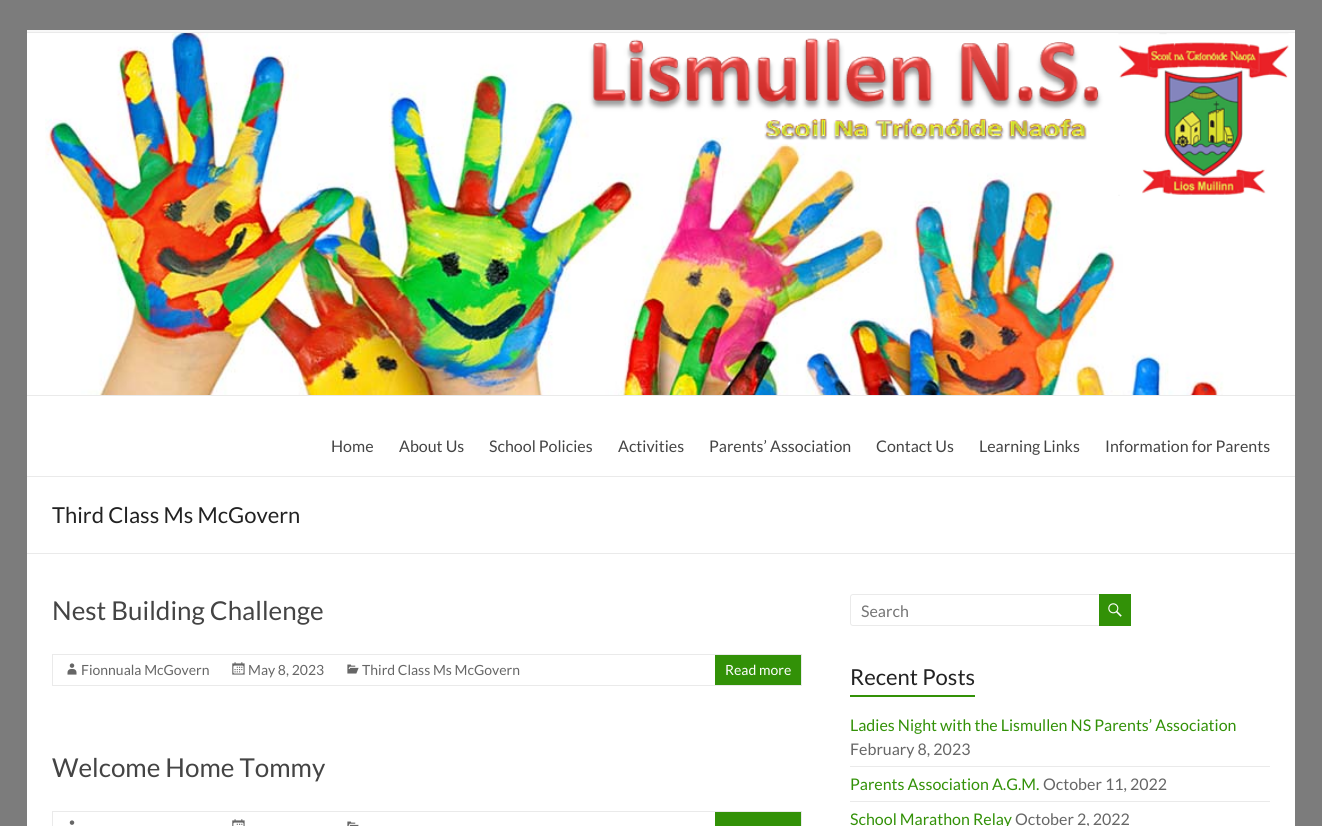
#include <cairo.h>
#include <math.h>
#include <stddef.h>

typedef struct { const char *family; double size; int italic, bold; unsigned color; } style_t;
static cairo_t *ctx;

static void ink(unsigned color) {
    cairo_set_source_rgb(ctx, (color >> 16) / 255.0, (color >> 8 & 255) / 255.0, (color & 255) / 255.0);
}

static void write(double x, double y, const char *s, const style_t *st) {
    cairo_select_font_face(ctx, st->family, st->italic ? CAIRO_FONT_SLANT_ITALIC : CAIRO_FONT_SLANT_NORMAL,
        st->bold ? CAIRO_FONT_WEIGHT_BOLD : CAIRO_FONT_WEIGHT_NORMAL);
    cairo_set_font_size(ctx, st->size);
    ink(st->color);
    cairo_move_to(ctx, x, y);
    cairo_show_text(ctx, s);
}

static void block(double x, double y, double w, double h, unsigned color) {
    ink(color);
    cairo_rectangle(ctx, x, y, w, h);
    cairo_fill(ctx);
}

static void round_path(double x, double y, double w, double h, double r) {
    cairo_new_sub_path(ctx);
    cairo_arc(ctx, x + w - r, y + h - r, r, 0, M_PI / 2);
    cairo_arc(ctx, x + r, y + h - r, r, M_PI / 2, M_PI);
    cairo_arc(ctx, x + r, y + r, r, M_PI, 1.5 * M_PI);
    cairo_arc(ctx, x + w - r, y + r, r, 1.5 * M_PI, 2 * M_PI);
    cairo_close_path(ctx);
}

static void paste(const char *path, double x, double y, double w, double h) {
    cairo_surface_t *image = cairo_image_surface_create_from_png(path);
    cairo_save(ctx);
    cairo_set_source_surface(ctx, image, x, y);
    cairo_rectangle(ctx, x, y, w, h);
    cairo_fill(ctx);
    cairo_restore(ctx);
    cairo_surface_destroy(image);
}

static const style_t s1 = {"Lato", 16, 0, 0, 0x444444};
static const style_t s2 = {"Lato", 22, 0, 0, 0x222222};
static const style_t s3 = {"Lato", 26, 0, 0, 0x444444};
static const style_t s4 = {"Lato", 14, 0, 0, 0x666666};
static const style_t s5 = {"Lato", 14, 0, 0, 0xffffff};
static const style_t s6 = {"Lato", 16, 0, 0, 0x757575};
static const style_t s7 = {"Lato", 16, 0, 0, 0x329107};
static const style_t s8 = {"Lato", 16, 0, 0, 0x666666};

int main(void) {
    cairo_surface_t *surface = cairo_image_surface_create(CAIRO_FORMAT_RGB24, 1322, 826);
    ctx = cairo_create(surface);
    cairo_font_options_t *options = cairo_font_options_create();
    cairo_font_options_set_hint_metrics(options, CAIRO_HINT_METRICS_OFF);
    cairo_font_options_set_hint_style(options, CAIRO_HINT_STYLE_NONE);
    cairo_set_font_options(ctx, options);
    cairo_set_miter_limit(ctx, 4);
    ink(0x7c7c7c);
    cairo_paint(ctx);
    block(27, 33, 1268, 793, 0xffffff);
    block(27, 30, 1268, 2, 0xf8f8f8);
    block(27, 32, 1268, 1, 0xeaeaea);
    paste("pic1.png", 45, 33, 1244, 362);
    block(27, 395, 1268, 1, 0xeaeaea);
    block(27, 476, 1268, 1, 0xeaeaea);
    write(331, 452, "Home", &s1);
    write(399, 452, "About Us", &s1);
    write(489, 452, "School Policies", &s1);
    write(618, 452, "Activities", &s1);
    write(709, 452, "Parents’ Association", &s1);
    write(876, 452, "Contact Us", &s1);
    write(979, 452, "Learning Links", &s1);
    write(1105, 452, "Information for Parents", &s1);
    block(27, 553, 1268, 1, 0xeaeaea);
    write(52, 523, "Third Class Ms McGovern", &s2);
    write(52, 620, "Nest Building Challenge", &s3);
    cairo_rectangle(ctx, 52.5, 654.5, 749, 31);
    ink(0xeaeaea);
    cairo_set_line_width(ctx, 1);
    cairo_stroke(ctx);
    paste("pic2.png", 67, 663, 10, 12);
    write(81, 675, "Fionnuala McGovern", &s4);
    paste("pic3.png", 232, 662, 13, 13);
    write(248, 675, "May 8, 2023", &s4);
    paste("pic4.png", 347, 664, 12, 10);
    write(362, 675, "Third Class Ms McGovern", &s4);
    block(715, 655, 86, 30, 0x329107);
    write(725, 675, "Read more", &s5);
    write(52, 777, "Welcome Home Tommy", &s3);
    cairo_rectangle(ctx, 52.5, 811.5, 749, 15);
    ink(0xeaeaea);
    cairo_stroke(ctx);
    paste("pic5.png", 69, 820, 6, 5);
    paste("pic6.png", 232, 819, 13, 7);
    paste("pic7.png", 347, 821, 12, 5);
    block(715, 812, 86, 14, 0x329107);
    round_path(850.5, 594.5, 251, 31, 2.5);
    ink(0xeaeaea);
    cairo_stroke(ctx);
    write(861, 617, "Search", &s6);
    block(1099, 594, 32, 32, 0x329107);
    paste("pic8.png", 1108, 603, 14, 14);
    write(850, 685, "Recent Posts", &s2);
    block(850, 695, 125, 2, 0x329107);
    block(850, 766, 420, 1, 0xeaeaea);
    write(850, 731, "Ladies Night with the Lismullen NS Parents’ Association", &s7);
    write(850, 755, "February 8, 2023", &s8);
    block(850, 801, 420, 1, 0xeaeaea);
    write(850, 790, "Parents Association A.G.M.", &s7);
    write(1043, 790, "October 11, 2022", &s8);
    write(850, 825, "School Marathon Relay", &s7);
    write(1015, 825, "October 2, 2022", &s8);
    cairo_surface_write_to_png(surface, "screenshot.png");
    cairo_font_options_destroy(options);
    cairo_destroy(ctx);
    cairo_surface_destroy(surface);
    return 0;
}
